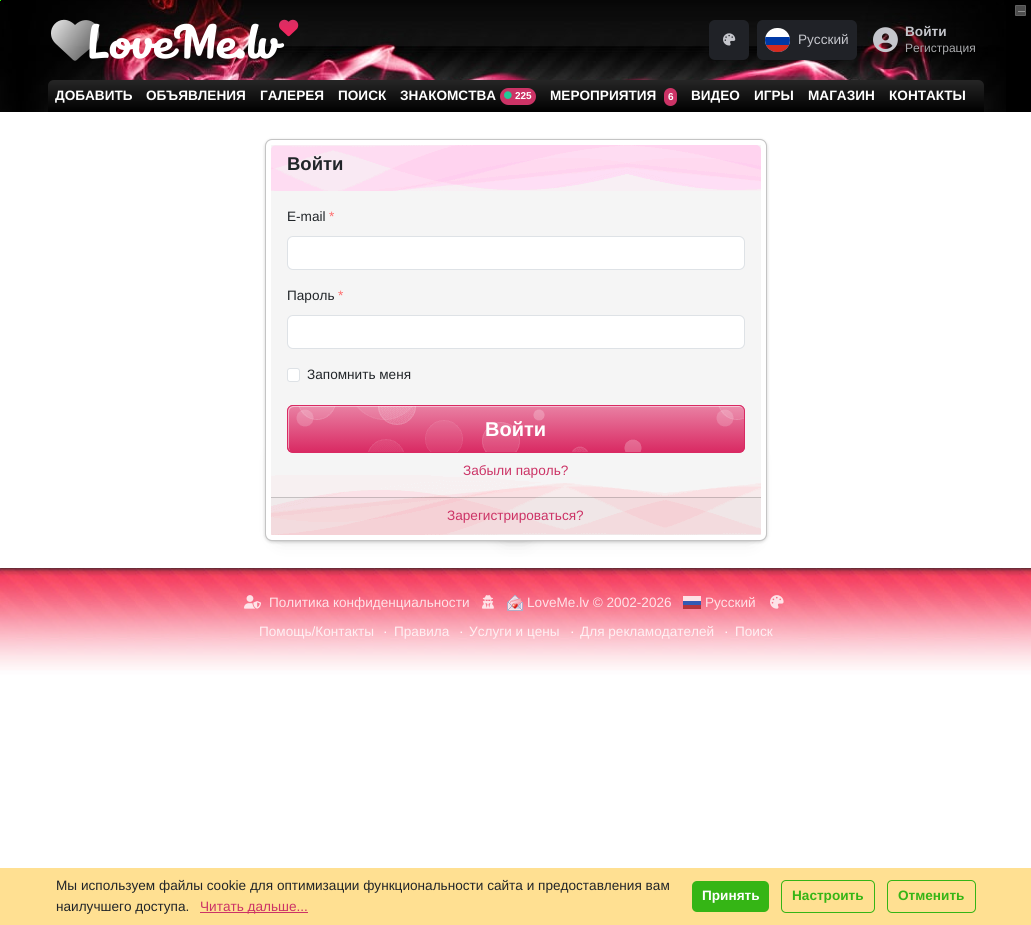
#include <cairo.h>
#include <math.h>
#include <stddef.h>

typedef struct { const char *family; double size; int italic, bold; unsigned color; } style_t;
static cairo_t *ctx;

static void ink(unsigned color) {
    cairo_set_source_rgb(ctx, (color >> 16) / 255.0, (color >> 8 & 255) / 255.0, (color & 255) / 255.0);
}

static void write(double x, double y, const char *s, const style_t *st) {
    cairo_select_font_face(ctx, st->family, st->italic ? CAIRO_FONT_SLANT_ITALIC : CAIRO_FONT_SLANT_NORMAL,
        st->bold ? CAIRO_FONT_WEIGHT_BOLD : CAIRO_FONT_WEIGHT_NORMAL);
    cairo_set_font_size(ctx, st->size);
    ink(st->color);
    cairo_move_to(ctx, x, y);
    cairo_show_text(ctx, s);
}

static void block(double x, double y, double w, double h, unsigned color) {
    ink(color);
    cairo_rectangle(ctx, x, y, w, h);
    cairo_fill(ctx);
}

static void round_path(double x, double y, double w, double h, double r) {
    cairo_new_sub_path(ctx);
    cairo_arc(ctx, x + w - r, y + h - r, r, 0, M_PI / 2);
    cairo_arc(ctx, x + r, y + h - r, r, M_PI / 2, M_PI);
    cairo_arc(ctx, x + r, y + r, r, M_PI, 1.5 * M_PI);
    cairo_arc(ctx, x + w - r, y + r, r, 1.5 * M_PI, 2 * M_PI);
    cairo_close_path(ctx);
}

static void blur_box(double x, double y, double w, double h, double r, double blur, double alpha) {
    cairo_push_group_with_content(ctx, CAIRO_CONTENT_ALPHA);
    cairo_set_operator(ctx, CAIRO_OPERATOR_SOURCE);
    for (int i = 15; i >= -15 && fmin(w, h) + blur * i / 3 > 0; i -= 2) {
        double e = blur * i / 6;
        cairo_set_source_rgba(ctx, 0, 0, 0, alpha * erfc((i - 1) / 8.5) / 2);
        round_path(x - e, y - e, w + 2 * e, h + 2 * e, fmax(0, fmin(r + e + blur * .6, fmin(w, h) / 2 + e)));
        cairo_fill(ctx);
    }
    cairo_pattern_t *soft = cairo_pop_group(ctx);
    cairo_mask(ctx, soft);
    cairo_pattern_destroy(soft);
}

static void paste(const char *path, double x, double y, double w, double h) {
    cairo_surface_t *image = cairo_image_surface_create_from_png(path);
    cairo_save(ctx);
    cairo_set_source_surface(ctx, image, x, y);
    cairo_rectangle(ctx, x, y, w, h);
    cairo_fill(ctx);
    cairo_restore(ctx);
    cairo_surface_destroy(image);
}

static const style_t s1 = {"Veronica", 48, 0, 0, 0xffffff};
static const style_t s2 = {"Liberation Sans", 13.6, 0, 0, 0xc5c6cc};
static const style_t s3 = {"Liberation Sans", 13.6, 0, 1, 0xc5c6cc};
static const style_t s4 = {"Liberation Sans", 12, 0, 0, 0xaaabae};
static const style_t s5 = {"Liberation Sans", 13.6, 0, 1, 0xffffff};
static const style_t s6 = {"Liberation Sans", 10, 0, 1, 0xffffff};
static const style_t s7 = {"Liberation Sans", 18.5, 0, 1, 0x212529};
static const style_t s8 = {"Liberation Sans", 13.6, 0, 0, 0x212529};
static const style_t s9 = {"Liberation Sans", 13.6, 0, 0, 0xff6d6d};
static const style_t s10 = {"Liberation Sans", 20, 0, 1, 0xffffff};
static const style_t s11 = {"Liberation Sans", 13.6, 0, 0, 0xcc3366};
static const style_t s12 = {"Liberation Sans", 13.6, 0, 0, 0xfee3e8};
static const style_t s13 = {"Liberation Sans", 13.6, 0, 0, 0xfef0f3};
static const style_t s14 = {"Liberation Sans", 13.6, 0, 0, 0xffffff};
static const style_t s15 = {"Liberation Sans", 13.6, 0, 1, 0x35b515};

int main(void) {
    cairo_surface_t *surface = cairo_image_surface_create(CAIRO_FORMAT_RGB24, 1031, 925);
    ctx = cairo_create(surface);
    cairo_font_options_t *options = cairo_font_options_create();
    cairo_font_options_set_hint_metrics(options, CAIRO_HINT_METRICS_OFF);
    cairo_font_options_set_hint_style(options, CAIRO_HINT_STYLE_NONE);
    cairo_set_font_options(ctx, options);
    cairo_set_miter_limit(ctx, 4);
    cairo_pattern_t *gradient;
    ink(0xffffff);
    cairo_paint(ctx);
    paste("pic1.png", 0, 0, 1006, 112);
    block(0, 0, 1, 1, 0x26ff00);
    block(1006, 0, 25, 112, 0x000000);
    ink(0x4d4d4d);
    round_path(1015, 5, 11, 11, 1);
    cairo_fill(ctx);
    round_path(1015.5, 5.5, 10, 10, 0.5);
    cairo_set_source_rgba(ctx, 0.557, 0.557, 0.557, 0.3);
    cairo_set_line_width(ctx, 1);
    cairo_stroke(ctx);
    block(1018, 11, 7, 1, 0x8e8e8e);
    write(88, 58, "LoveMe.lv", &s1);
    paste("pic2.png", 279, 19, 20, 18);
    ink(0x202227);
    round_path(709, 20, 40, 40, 6);
    cairo_fill(ctx);
    paste("pic3.png", 723, 33, 13, 13);
    round_path(757, 20, 100, 40, 6);
    cairo_fill(ctx);
    ink(0xffffff);
    round_path(765, 28, 25, 24, 12);
    cairo_fill(ctx);
    cairo_save(ctx);
    round_path(765, 28, 25, 24, 12);
    cairo_clip(ctx);
    ink(0x0039a6);
    cairo_new_path(ctx);
    cairo_move_to(ctx, 765, 37);
    cairo_line_to(ctx, 790, 37);
    cairo_line_to(ctx, 790, 40);
    cairo_curve_to(ctx, 790, 46.5, 784.5, 52, 778, 52);
    cairo_line_to(ctx, 777, 52);
    cairo_curve_to(ctx, 770.5, 52, 765, 46.5, 765, 40);
    cairo_close_path(ctx);
    cairo_fill(ctx);
    block(765, 45, 25, 7, 0xd52b1e);
    cairo_restore(ctx);
    write(798, 44, "Русский", &s2);
    paste("pic4.png", 873, 27, 25, 26);
    write(905, 36, "Войти", &s3);
    write(905, 52, "Регистрация", &s4);
    gradient = cairo_pattern_create_linear(516, 80, 516, 112);
    cairo_pattern_add_color_stop_rgba(gradient, 0, 0.149, 0.149, 0.149, 1);
    cairo_pattern_add_color_stop_rgba(gradient, 1, 0, 0, 0, 1);
    cairo_set_source(ctx, gradient);
    cairo_pattern_destroy(gradient);
    cairo_new_path(ctx);
    cairo_move_to(ctx, 54, 80);
    cairo_line_to(ctx, 978, 80);
    cairo_curve_to(ctx, 981.5, 80, 984, 82.5, 984, 86);
    cairo_line_to(ctx, 984, 112);
    cairo_line_to(ctx, 48, 112);
    cairo_line_to(ctx, 48, 86);
    cairo_curve_to(ctx, 48, 82.5, 50.5, 80, 54, 80);
    cairo_close_path(ctx);
    cairo_fill(ctx);
    write(55, 100, "ДОБАВИТЬ", &s5);
    write(146, 100, "ОБЪЯВЛЕНИЯ", &s5);
    write(260, 100, "ГАЛЕРЕЯ", &s5);
    write(338, 100, "ПОИСК", &s5);
    write(400, 100, "ЗНАКОМСТВА", &s5);
    ink(0xcc3366);
    round_path(500, 88, 36, 17, 8.5);
    cairo_fill(ctx);
    paste("pic5.png", 504, 91, 8, 8);
    write(515, 99, "225", &s6);
    write(550, 100, "МЕРОПРИЯТИЯ", &s5);
    ink(0xcc3366);
    round_path(664, 88, 13, 18, 6.5);
    cairo_fill(ctx);
    write(668, 100, "6", &s6);
    write(691, 100, "ВИДЕО", &s5);
    write(754, 100, "ИГРЫ", &s5);
    write(808, 100, "МАГАЗИН", &s5);
    write(889, 100, "КОНТАКТЫ", &s5);
    ink(0x000000);
    blur_box(266, 141, 500, 400, 6, 2, 0.3);
    blur_box(281, 457, 245, 78, 0, 10, 0.2);
    blur_box(505, 457, 245, 78, 0, 10, 0.2);
    ink(0xf5f5f5);
    round_path(266, 140, 500, 400, 6);
    cairo_fill(ctx);
    paste("pic6.png", 266, 475, 500, 60);
    round_path(268.5, 142.5, 495, 395, 3.5);
    ink(0xffffff);
    cairo_set_line_width(ctx, 5);
    cairo_stroke(ctx);
    paste("pic7.png", 271, 145, 490, 46);
    round_path(287.5, 236.5, 457, 33, 5.5);
    cairo_fill_preserve(ctx);
    ink(0xdee2e6);
    cairo_set_line_width(ctx, 1);
    cairo_stroke(ctx);
    ink(0xffffff);
    round_path(287.5, 315.5, 457, 33, 5.5);
    cairo_fill_preserve(ctx);
    ink(0xdee2e6);
    cairo_stroke(ctx);
    ink(0xffffff);
    round_path(287.5, 368.5, 12, 13, 2.5);
    cairo_fill_preserve(ctx);
    ink(0xdee2e6);
    cairo_stroke(ctx);
    cairo_set_source_rgba(ctx, 0.129, 0.145, 0.161, 0.03);
    cairo_rectangle(ctx, 271, 497, 490, 38);
    cairo_fill(ctx);
    cairo_set_source_rgba(ctx, 0, 0, 0, 0.18);
    cairo_rectangle(ctx, 271, 497, 490, 1);
    cairo_fill(ctx);
    round_path(265.5, 139.5, 501, 401, 6.5);
    ink(0xc4c4c4);
    cairo_stroke(ctx);
    write(287, 170, "Войти", &s7);
    write(287, 221, "E-mail", &s8);
    write(329, 221, "*", &s9);
    write(287, 300, "Пароль", &s8);
    write(338, 300, "*", &s9);
    write(307, 379, "Запомнить меня", &s8);
    paste("pic8.png", 287, 405, 458, 48);
    cairo_set_source_rgba(ctx, 1, 1, 1, 0.5);
    cairo_new_path(ctx);
    cairo_move_to(ctx, 294, 407);
    cairo_line_to(ctx, 740, 407);
    cairo_line_to(ctx, 743, 408);
    cairo_curve_to(ctx, 742, 407, 740, 406, 739, 406);
    cairo_line_to(ctx, 293, 406);
    cairo_curve_to(ctx, 290, 406, 288, 408, 288, 411);
    cairo_line_to(ctx, 288, 447);
    cairo_curve_to(ctx, 288, 448, 289, 450, 290, 451);
    cairo_line_to(ctx, 289, 448);
    cairo_line_to(ctx, 289, 412);
    cairo_curve_to(ctx, 289, 409, 291, 407, 294, 407);
    cairo_close_path(ctx);
    cairo_fill(ctx);
    round_path(287.5, 405.5, 457, 47, 5.5);
    ink(0xd92a63);
    cairo_stroke(ctx);
    write(485, 436, "Войти", &s10);
    write(463, 475, "Забыли пароль?", &s11);
    write(447, 520, "Зарегистрироваться?", &s11);
    paste("pic9.png", 0, 568, 1031, 107);
    paste("pic10.png", 244, 595, 17, 14);
    write(269, 607, "Политика конфиденциальности", &s12);
    paste("pic11.png", 482, 595, 12, 14);
    paste("pic12.png", 507, 595, 16, 16);
    write(527, 607, "LoveMe.lv © 2002-2026", &s12);
    cairo_set_source_rgba(ctx, 1, 1, 1, 0.8);
    cairo_rectangle(ctx, 683, 596, 18, 9);
    cairo_fill(ctx);
    cairo_set_source_rgba(ctx, 0, 0.224, 0.651, 0.8);
    cairo_rectangle(ctx, 683, 601, 18, 4);
    cairo_fill(ctx);
    block(683, 605, 18, 4, 0xb5353c);
    write(705, 607, "Русский", &s12);
    paste("pic13.png", 770, 595, 14, 14);
    write(259, 636, "Помощь/Контакты", &s13);
    write(383, 636, "·", &s14);
    write(394, 636, "Правила", &s13);
    write(459, 636, "·", &s14);
    write(469, 636, "Услуги и цены", &s13);
    write(570, 636, "·", &s14);
    write(580, 636, "Для рекламодателей", &s13);
    write(724, 636, "·", &s14);
    write(735, 636, "Поиск", &s13);
    block(0, 868, 1031, 57, 0xffe092);
    write(56, 890, "Мы используем файлы cookie для оптимизации функциональности сайта и предоставления вам", &s8);
    write(56, 911, "наилучшего доступа.", &s8);
    block(200, 912, 108, 1, 0xcc3366);
    write(200, 911, "Читать дальше...", &s11);
    ink(0x35b515);
    round_path(692, 881, 77, 31, 5);
    cairo_fill(ctx);
    write(702, 900, "Принять", &s5);
    round_path(781.5, 880.5, 93, 32, 4.5);
    ink(0x35b515);
    cairo_stroke(ctx);
    write(792, 900, "Настроить", &s15);
    round_path(887.5, 880.5, 88, 32, 4.5);
    cairo_stroke(ctx);
    write(898, 900, "Отменить", &s15);
    cairo_surface_write_to_png(surface, "screenshot.png");
    cairo_font_options_destroy(options);
    cairo_destroy(ctx);
    cairo_surface_destroy(surface);
    return 0;
}
